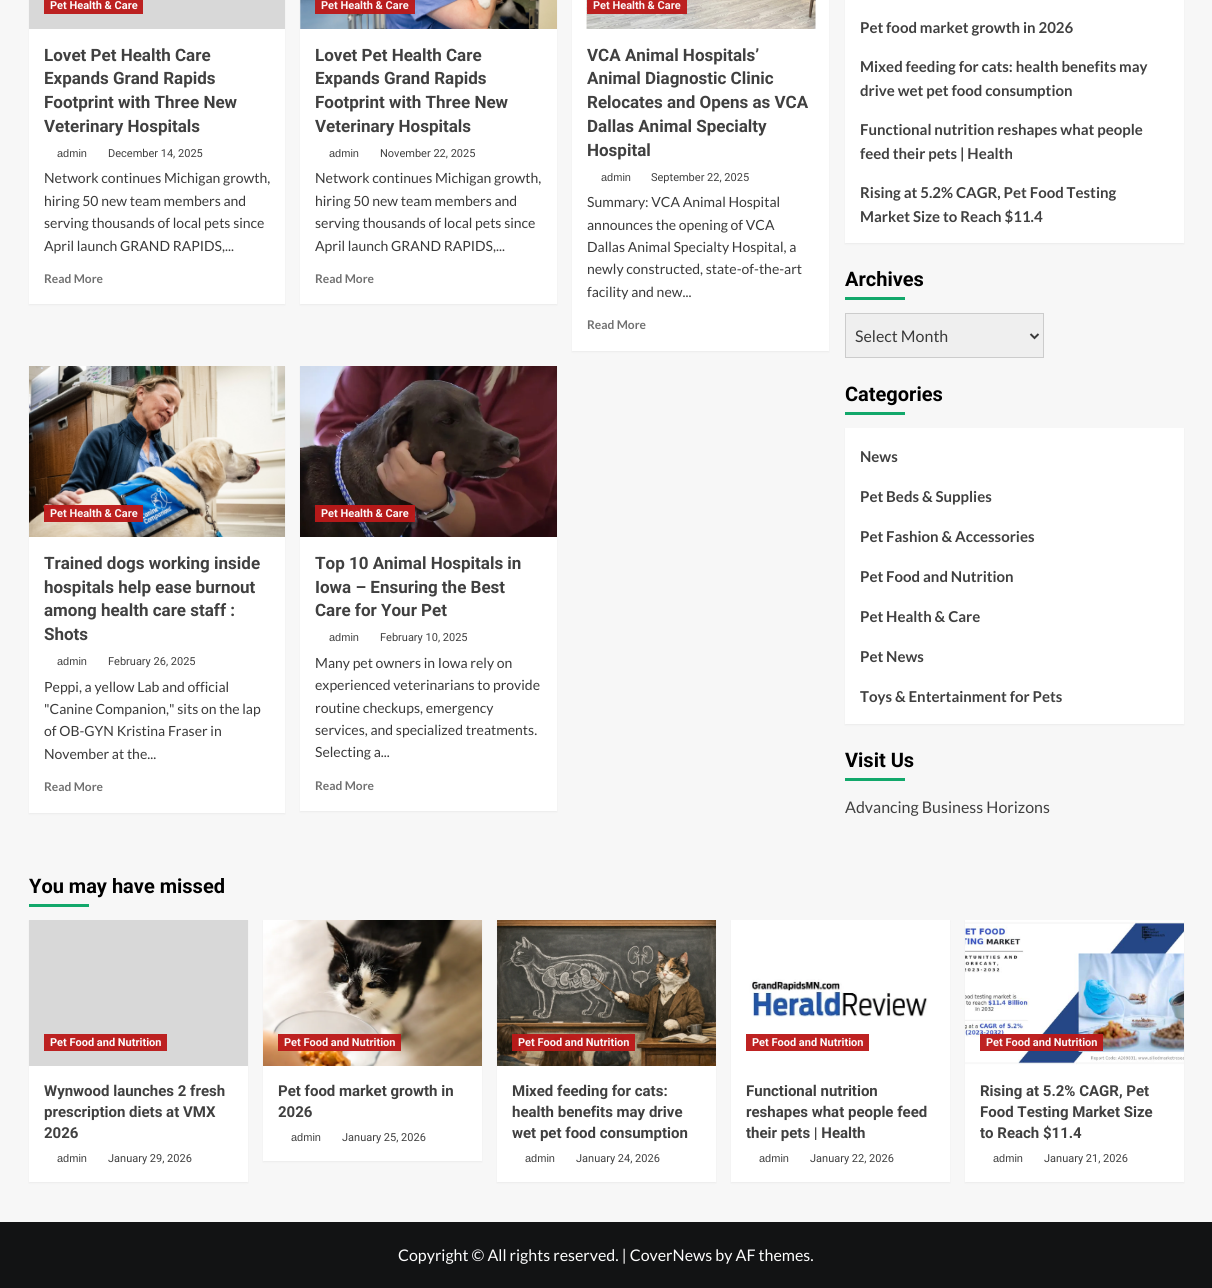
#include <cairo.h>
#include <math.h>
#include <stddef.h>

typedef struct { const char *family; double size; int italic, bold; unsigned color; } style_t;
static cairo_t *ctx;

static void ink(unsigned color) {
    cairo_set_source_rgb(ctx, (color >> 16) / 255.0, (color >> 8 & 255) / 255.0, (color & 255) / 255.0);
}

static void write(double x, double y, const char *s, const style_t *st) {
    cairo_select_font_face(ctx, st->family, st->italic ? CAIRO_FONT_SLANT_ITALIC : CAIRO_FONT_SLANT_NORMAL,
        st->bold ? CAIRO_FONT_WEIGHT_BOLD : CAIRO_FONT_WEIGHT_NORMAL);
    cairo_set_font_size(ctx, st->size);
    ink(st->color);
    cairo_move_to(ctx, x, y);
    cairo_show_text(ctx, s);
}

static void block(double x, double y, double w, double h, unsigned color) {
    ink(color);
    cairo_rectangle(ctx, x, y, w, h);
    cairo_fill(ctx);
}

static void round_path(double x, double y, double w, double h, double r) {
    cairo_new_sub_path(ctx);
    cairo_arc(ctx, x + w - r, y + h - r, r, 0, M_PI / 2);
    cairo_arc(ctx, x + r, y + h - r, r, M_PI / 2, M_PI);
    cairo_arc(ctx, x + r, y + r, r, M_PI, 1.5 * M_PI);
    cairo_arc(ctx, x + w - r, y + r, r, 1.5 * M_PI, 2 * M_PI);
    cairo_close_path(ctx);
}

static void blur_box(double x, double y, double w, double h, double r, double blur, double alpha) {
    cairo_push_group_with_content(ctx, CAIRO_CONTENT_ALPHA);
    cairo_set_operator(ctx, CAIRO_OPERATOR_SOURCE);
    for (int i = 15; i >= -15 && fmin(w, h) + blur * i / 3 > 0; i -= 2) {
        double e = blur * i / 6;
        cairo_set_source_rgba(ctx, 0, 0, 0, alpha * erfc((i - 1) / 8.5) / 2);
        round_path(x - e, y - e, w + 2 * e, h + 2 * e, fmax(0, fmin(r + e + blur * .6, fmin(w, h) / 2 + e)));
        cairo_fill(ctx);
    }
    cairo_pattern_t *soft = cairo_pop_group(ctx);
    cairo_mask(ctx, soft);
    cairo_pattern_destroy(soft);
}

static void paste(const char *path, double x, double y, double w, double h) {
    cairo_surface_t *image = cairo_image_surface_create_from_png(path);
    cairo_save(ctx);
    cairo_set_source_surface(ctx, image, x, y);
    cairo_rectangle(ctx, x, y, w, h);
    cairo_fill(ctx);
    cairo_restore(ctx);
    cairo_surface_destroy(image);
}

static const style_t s1 = {"Roboto", 11, 0, 1, 0xfdfdfd};
static const style_t s2 = {"Roboto", 17, 0, 1, 0x404040};
static const style_t s3 = {"Liberation Sans", 11, 0, 0, 0x404040};
static const style_t s4 = {"Roboto", 11, 0, 0, 0x404040};
static const style_t s5 = {"Lato", 14, 0, 0, 0x3a3a3a};
static const style_t s6 = {"Lato", 12, 0, 1, 0x707070};
static const style_t s7 = {"Roboto", 11, 0, 1, 0xfcf6f6};
static const style_t s8 = {"Lato", 15, 0, 1, 0x404040};
static const style_t s9 = {"Roboto", 20, 0, 1, 0x000000};
static const style_t s10 = {"Lato", 16, 0, 0, 0x3a3a3a};
static const style_t s11 = {"Lato", 16, 0, 0, 0x404040};
static const style_t s12 = {"Roboto", 15, 0, 1, 0x404040};
static const style_t s13 = {"Lato", 16, 0, 0, 0xfdfdfd};

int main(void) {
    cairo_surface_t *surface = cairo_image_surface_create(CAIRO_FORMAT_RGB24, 1212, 1288);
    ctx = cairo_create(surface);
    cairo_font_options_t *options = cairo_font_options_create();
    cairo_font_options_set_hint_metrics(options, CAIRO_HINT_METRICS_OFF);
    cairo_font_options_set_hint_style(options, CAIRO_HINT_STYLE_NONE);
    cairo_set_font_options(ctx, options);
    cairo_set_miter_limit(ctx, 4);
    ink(0xf7f7f7);
    cairo_paint(ctx);
    ink(0x000000);
    blur_box(29, -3, 256, 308, 0, 1, 0.05);
    block(29, 29, 256, 275, 0xffffff);
    block(29, 0, 256, 29, 0xd8d8d8);
    block(44, 0, 99, 14, 0xbc2121);
    write(50, 9, "Pet Health & Care", &s1);
    write(44, 61, "Lovet Pet Health Care", &s2);
    write(44, 84, "Expands Grand Rapids", &s2);
    write(44, 108, "Footprint with Three New", &s2);
    write(44, 132, "Veterinary Hospitals", &s2);
    write(57, 157, "admin", &s3);
    write(108, 157, "December 14, 2025", &s4);
    write(44, 183, "Network continues Michigan growth,", &s5);
    write(44, 206, "hiring 50 new team members and", &s5);
    write(44, 228, "serving thousands of local pets since", &s5);
    write(44, 251, "April launch GRAND RAPIDS,...", &s5);
    write(44, 283, "Read More", &s6);
    ink(0x000000);
    blur_box(300, -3, 257, 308, 0, 1, 0.05);
    block(300, 29, 257, 275, 0xffffff);
    paste("pic1.png", 300, 0, 257, 29);
    cairo_set_source_rgba(ctx, 0.733, 0.098, 0.098, 0.96);
    cairo_rectangle(ctx, 315, 0, 100, 14);
    cairo_fill(ctx);
    write(321, 9, "Pet Health & Care", &s7);
    write(315, 61, "Lovet Pet Health Care", &s2);
    write(315, 84, "Expands Grand Rapids", &s2);
    write(315, 108, "Footprint with Three New", &s2);
    write(315, 132, "Veterinary Hospitals", &s2);
    write(329, 157, "admin", &s3);
    write(380, 157, "November 22, 2025", &s4);
    write(315, 183, "Network continues Michigan growth,", &s5);
    write(315, 206, "hiring 50 new team members and", &s5);
    write(315, 228, "serving thousands of local pets since", &s5);
    write(315, 251, "April launch GRAND RAPIDS,...", &s5);
    write(315, 283, "Read More", &s6);
    ink(0x000000);
    blur_box(572, -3, 257, 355, 0, 1, 0.05);
    block(572, 29, 257, 322, 0xffffff);
    paste("pic2.png", 572, 0, 257, 29);
    cairo_set_source_rgba(ctx, 0.733, 0.098, 0.098, 0.96);
    cairo_rectangle(ctx, 587, 0, 100, 14);
    cairo_fill(ctx);
    write(593, 9, "Pet Health & Care", &s7);
    write(587, 61, "VCA Animal Hospitals’", &s2);
    write(587, 84, "Animal Diagnostic Clinic", &s2);
    write(587, 108, "Relocates and Opens as VCA", &s2);
    write(587, 132, "Dallas Animal Specialty", &s2);
    write(587, 156, "Hospital", &s2);
    write(601, 181, "admin", &s3);
    write(651, 181, "September 22, 2025", &s4);
    write(587, 207, "Summary: VCA Animal Hospital", &s5);
    write(587, 230, "announces the opening of VCA", &s5);
    write(587, 252, "Dallas Animal Specialty Hospital, a", &s5);
    write(587, 274, "newly constructed, state-of-the-art", &s5);
    write(587, 297, "facility and new...", &s5);
    write(587, 329, "Read More", &s6);
    ink(0x000000);
    blur_box(29, 367, 256, 447, 0, 1, 0.05);
    block(29, 537, 256, 276, 0xffffff);
    paste("pic3.png", 29, 366, 256, 171);
    cairo_set_source_rgba(ctx, 0.733, 0.098, 0.098, 0.96);
    cairo_rectangle(ctx, 44, 505, 99, 17);
    cairo_fill(ctx);
    write(50, 517, "Pet Health & Care", &s7);
    write(44, 569, "Trained dogs working inside", &s2);
    write(44, 593, "hospitals help ease burnout", &s2);
    write(44, 616, "among health care staff :", &s2);
    write(44, 640, "Shots", &s2);
    write(57, 665, "admin", &s3);
    write(108, 665, "February 26, 2025", &s4);
    write(44, 692, "Peppi, a yellow Lab and official", &s5);
    write(44, 714, "\"Canine Companion,\" sits on the lap", &s5);
    write(44, 736, "of OB-GYN Kristina Fraser in", &s5);
    write(44, 759, "November at the...", &s5);
    write(44, 791, "Read More", &s6);
    ink(0x000000);
    blur_box(300, 367, 257, 445, 0, 1, 0.05);
    block(300, 537, 257, 274, 0xffffff);
    paste("pic4.png", 300, 366, 257, 171);
    cairo_set_source_rgba(ctx, 0.733, 0.098, 0.098, 0.96);
    cairo_rectangle(ctx, 315, 505, 100, 17);
    cairo_fill(ctx);
    write(321, 517, "Pet Health & Care", &s7);
    write(315, 569, "Top 10 Animal Hospitals in", &s2);
    write(315, 593, "Iowa – Ensuring the Best", &s2);
    write(315, 616, "Care for Your Pet", &s2);
    write(329, 641, "admin", &s3);
    write(380, 641, "February 10, 2025", &s4);
    write(315, 668, "Many pet owners in Iowa rely on", &s5);
    write(315, 690, "experienced veterinarians to provide", &s5);
    write(315, 713, "routine checkups, emergency", &s5);
    write(315, 735, "services, and specialized treatments.", &s5);
    write(315, 757, "Selecting a...", &s5);
    write(315, 790, "Read More", &s6);
    ink(0x000000);
    blur_box(845, -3, 339, 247, 0, 1, 0.05);
    block(845, 0, 339, 243, 0xffffff);
    write(860, 33, "Pet food market growth in 2026", &s8);
    write(860, 72, "Mixed feeding for cats: health benefits may", &s8);
    write(860, 96, "drive wet pet food consumption", &s8);
    write(860, 135, "Functional nutrition reshapes what people", &s8);
    write(860, 159, "feed their pets | Health", &s8);
    write(860, 198, "Rising at 5.2% CAGR, Pet Food Testing", &s8);
    write(860, 222, "Market Size to Reach $11.4", &s8);
    write(845, 286, "Archives", &s9);
    block(845, 297, 60, 3, 0x12a86b);
    ink(0xefefef);
    cairo_rectangle(ctx, 845.5, 313.5, 198, 44);
    cairo_fill_preserve(ctx);
    ink(0xcccccc);
    cairo_set_line_width(ctx, 1);
    cairo_stroke(ctx);
    cairo_new_path(ctx);
    cairo_move_to(ctx, 1030.5, 334);
    cairo_line_to(ctx, 1034.5, 338);
    cairo_line_to(ctx, 1038.5, 334);
    ink(0x3a3a3a);
    cairo_set_line_width(ctx, 2);
    cairo_stroke(ctx);
    write(855, 342, "Select Month", &s10);
    write(845, 401, "Categories", &s9);
    block(845, 412, 60, 3, 0x12a86b);
    ink(0x000000);
    blur_box(845, 429, 339, 296, 0, 1, 0.05);
    block(845, 428, 339, 296, 0xffffff);
    write(860, 462, "News", &s8);
    write(860, 502, "Pet Beds & Supplies", &s8);
    write(860, 542, "Pet Fashion & Accessories", &s8);
    write(860, 582, "Pet Food and Nutrition", &s8);
    write(860, 622, "Pet Health & Care", &s8);
    write(860, 662, "Pet News", &s8);
    write(860, 702, "Toys & Entertainment for Pets", &s8);
    write(845, 767, "Visit Us", &s9);
    block(845, 778, 60, 3, 0x12a86b);
    write(845, 813, "Advancing Business Horizons", &s11);
    write(29, 893, "You may have missed", &s9);
    block(29, 904, 60, 3, 0x12a86b);
    ink(0x000000);
    blur_box(29, 921, 219, 262, 0, 1, 0.05);
    block(29, 1066, 219, 116, 0xffffff);
    block(29, 920, 219, 146, 0xd8d8d8);
    block(44, 1034, 123, 17, 0xbc2121);
    write(50, 1046, "Pet Food and Nutrition", &s1);
    write(44, 1096, "Wynwood launches 2 fresh", &s12);
    write(44, 1117, "prescription diets at VMX", &s12);
    write(44, 1138, "2026", &s12);
    write(57, 1162, "admin", &s3);
    write(108, 1162, "January 29, 2026", &s4);
    ink(0x000000);
    blur_box(263, 921, 219, 241, 0, 1, 0.05);
    block(263, 1066, 219, 95, 0xffffff);
    paste("pic5.png", 263, 920, 219, 146);
    cairo_set_source_rgba(ctx, 0.733, 0.098, 0.098, 0.96);
    cairo_rectangle(ctx, 278, 1034, 123, 17);
    cairo_fill(ctx);
    write(284, 1046, "Pet Food and Nutrition", &s7);
    write(278, 1096, "Pet food market growth in", &s12);
    write(278, 1117, "2026", &s12);
    write(291, 1141, "admin", &s3);
    write(342, 1141, "January 25, 2026", &s4);
    ink(0x000000);
    blur_box(497, 921, 219, 262, 0, 1, 0.05);
    block(497, 1066, 219, 116, 0xffffff);
    paste("pic6.png", 497, 920, 219, 146);
    cairo_set_source_rgba(ctx, 0.733, 0.098, 0.098, 0.96);
    cairo_rectangle(ctx, 512, 1034, 123, 17);
    cairo_fill(ctx);
    write(518, 1046, "Pet Food and Nutrition", &s7);
    write(512, 1096, "Mixed feeding for cats:", &s12);
    write(512, 1117, "health benefits may drive", &s12);
    write(512, 1138, "wet pet food consumption", &s12);
    write(525, 1162, "admin", &s3);
    write(576, 1162, "January 24, 2026", &s4);
    ink(0x000000);
    blur_box(731, 921, 219, 262, 0, 1, 0.05);
    block(731, 1066, 219, 116, 0xffffff);
    paste("pic7.png", 731, 920, 219, 146);
    block(746, 1034, 123, 17, 0xbe2222);
    write(752, 1046, "Pet Food and Nutrition", &s1);
    write(746, 1096, "Functional nutrition", &s12);
    write(746, 1117, "reshapes what people feed", &s12);
    write(746, 1138, "their pets | Health", &s12);
    write(759, 1162, "admin", &s3);
    write(810, 1162, "January 22, 2026", &s4);
    ink(0x000000);
    blur_box(965, 921, 219, 262, 0, 1, 0.05);
    block(965, 1066, 219, 116, 0xffffff);
    paste("pic8.png", 965, 920, 219, 146);
    cairo_set_source_rgba(ctx, 0.733, 0.098, 0.098, 0.96);
    cairo_rectangle(ctx, 980, 1034, 123, 17);
    cairo_fill(ctx);
    write(986, 1046, "Pet Food and Nutrition", &s7);
    write(980, 1096, "Rising at 5.2% CAGR, Pet", &s12);
    write(980, 1117, "Food Testing Market Size", &s12);
    write(980, 1138, "to Reach $11.4", &s12);
    write(993, 1162, "admin", &s3);
    write(1044, 1162, "January 21, 2026", &s4);
    block(0, 1222, 1212, 66, 0x121314);
    write(398, 1261, "Copyright © All rights reserved. | CoverNews by AF themes.", &s13);
    cairo_surface_write_to_png(surface, "screenshot.png");
    cairo_font_options_destroy(options);
    cairo_destroy(ctx);
    cairo_surface_destroy(surface);
    return 0;
}
